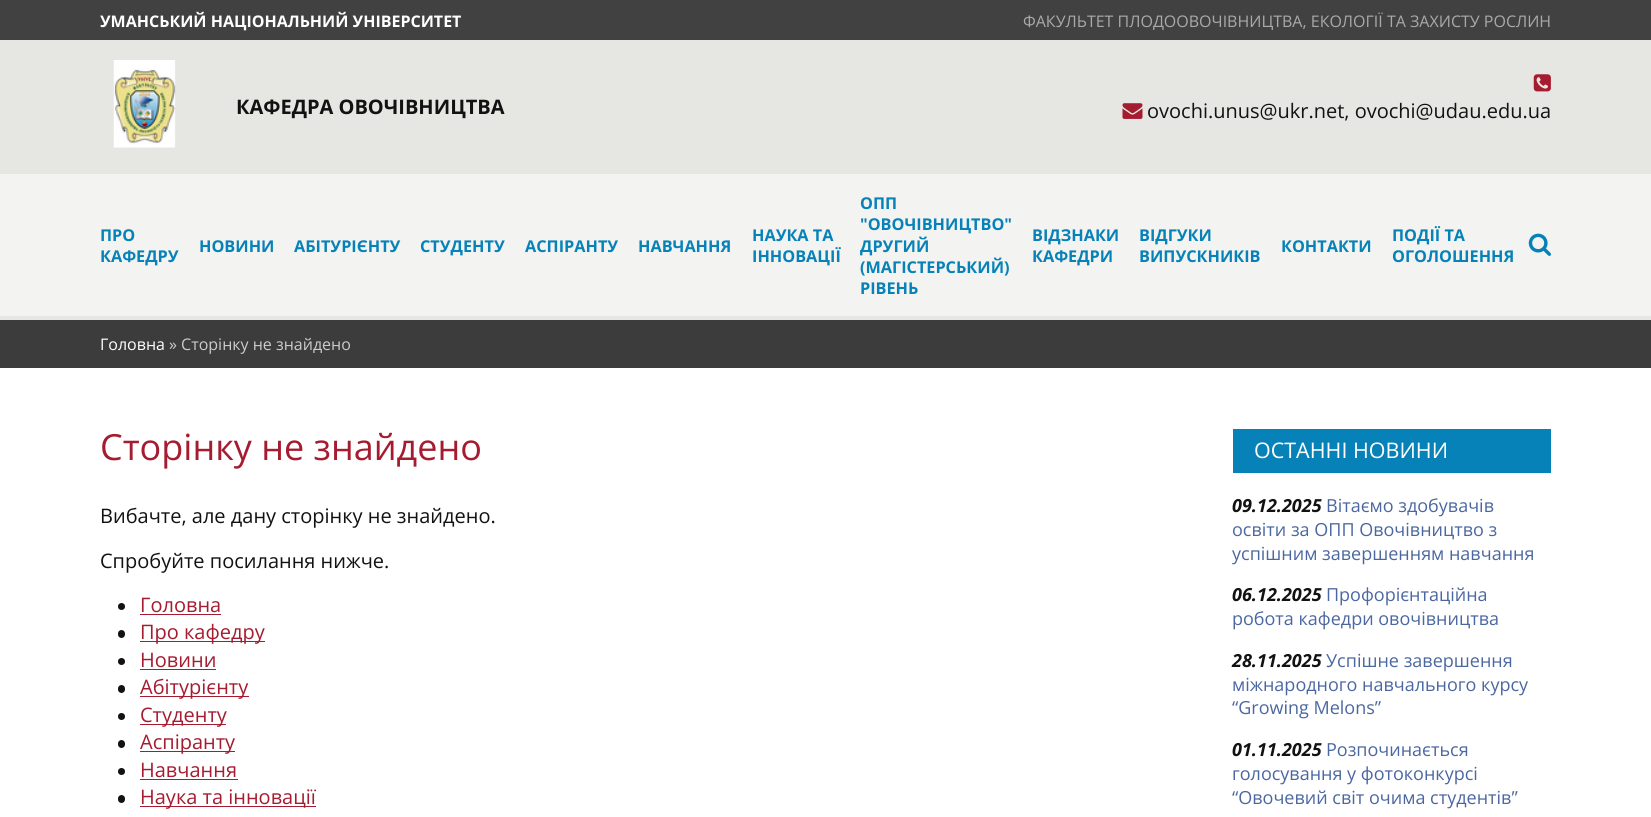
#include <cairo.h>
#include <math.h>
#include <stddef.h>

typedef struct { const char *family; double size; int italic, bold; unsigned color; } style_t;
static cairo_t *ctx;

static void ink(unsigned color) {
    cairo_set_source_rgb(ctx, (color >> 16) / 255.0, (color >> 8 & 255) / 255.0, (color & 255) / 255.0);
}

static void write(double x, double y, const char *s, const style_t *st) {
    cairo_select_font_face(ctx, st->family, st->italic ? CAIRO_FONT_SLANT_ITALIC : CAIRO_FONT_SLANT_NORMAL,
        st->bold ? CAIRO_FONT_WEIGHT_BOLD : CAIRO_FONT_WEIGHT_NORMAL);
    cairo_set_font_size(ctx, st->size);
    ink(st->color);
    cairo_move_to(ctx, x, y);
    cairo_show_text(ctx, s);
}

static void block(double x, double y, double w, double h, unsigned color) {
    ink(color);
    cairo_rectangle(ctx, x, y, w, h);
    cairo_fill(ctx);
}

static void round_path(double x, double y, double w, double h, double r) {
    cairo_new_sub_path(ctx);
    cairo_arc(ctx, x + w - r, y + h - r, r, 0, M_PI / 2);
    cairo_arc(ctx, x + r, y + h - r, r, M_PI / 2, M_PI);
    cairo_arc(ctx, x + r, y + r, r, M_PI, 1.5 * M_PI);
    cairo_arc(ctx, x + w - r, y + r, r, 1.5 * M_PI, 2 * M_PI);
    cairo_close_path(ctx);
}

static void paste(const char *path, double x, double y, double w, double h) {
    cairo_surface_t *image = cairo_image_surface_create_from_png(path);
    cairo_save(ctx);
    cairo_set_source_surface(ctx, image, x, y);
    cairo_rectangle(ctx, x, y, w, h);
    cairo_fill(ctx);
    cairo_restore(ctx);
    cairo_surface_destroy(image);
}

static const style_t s1 = {"Open Sans", 16, 0, 1, 0xffffff};
static const style_t s2 = {"Open Sans", 16, 0, 0, 0xa9a9a9};
static const style_t s3 = {"Open Sans", 20, 0, 1, 0x121212};
static const style_t s4 = {"Open Sans", 20, 0, 0, 0x121212};
static const style_t s5 = {"Open Sans", 16.25, 0, 1, 0x0682b8};
static const style_t s6 = {"Open Sans", 16, 0, 0, 0xffffff};
static const style_t s7 = {"Open Sans", 16, 0, 0, 0xcccccc};
static const style_t s8 = {"Open Sans", 36, 0, 0, 0xa51c30};
static const style_t s9 = {"Open Sans", 20, 0, 0, 0xa51c30};
static const style_t s10 = {"Open Sans", 21.5, 0, 0, 0xffffff};
static const style_t s11 = {"Open Sans", 18, 1, 1, 0x121212};
static const style_t s12 = {"Open Sans", 18, 0, 0, 0x4b67a1};

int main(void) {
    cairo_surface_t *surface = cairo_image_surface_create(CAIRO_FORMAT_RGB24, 1651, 817);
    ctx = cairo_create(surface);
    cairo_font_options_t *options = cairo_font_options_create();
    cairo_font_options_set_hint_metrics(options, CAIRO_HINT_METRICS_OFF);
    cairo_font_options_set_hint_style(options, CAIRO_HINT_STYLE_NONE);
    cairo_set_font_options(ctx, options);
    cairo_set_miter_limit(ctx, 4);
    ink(0xffffff);
    cairo_paint(ctx);
    block(0, 0, 1651, 40, 0x414141);
    write(100, 27, "УМАНСЬКИЙ НАЦІОНАЛЬНИЙ УНІВЕРСИТЕТ", &s1);
    write(1023, 27, "ФАКУЛЬТЕТ ПЛОДООВОЧІВНИЦТВА, ЕКОЛОГІЇ ТА ЗАХИСТУ РОСЛИН", &s2);
    block(0, 40, 1651, 134, 0xe6e6e3);
    paste("pic1.png", 113, 60, 63, 88);
    write(236, 114, "КАФЕДРА ОВОЧІВНИЦТВА", &s3);
    paste("pic2.png", 1533, 74, 18, 18);
    paste("pic3.png", 1122, 103, 21, 16);
    write(1147, 118, "ovochi.unus@ukr.net, ovochi@udau.edu.ua", &s4);
    block(0, 174, 1651, 142, 0xf3f3f1);
    block(0, 316, 1651, 4, 0xe6e6e3);
    write(100, 241, "ПРО", &s5);
    write(100, 262, "КАФЕДРУ", &s5);
    write(199, 252, "НОВИНИ", &s5);
    write(294, 252, "АБІТУРІЄНТУ", &s5);
    write(420, 252, "СТУДЕНТУ", &s5);
    write(525, 252, "АСПІРАНТУ", &s5);
    write(638, 252, "НАВЧАННЯ", &s5);
    write(752, 241, "НАУКА ТА", &s5);
    write(752, 262, "ІННОВАЦІЇ", &s5);
    write(860, 209, "ОПП", &s5);
    write(860, 230, "\"ОВОЧІВНИЦТВО\"", &s5);
    write(860, 252, "ДРУГИЙ", &s5);
    write(860, 273, "(МАГІСТЕРСЬКИЙ)", &s5);
    write(860, 294, "РІВЕНЬ", &s5);
    write(1032, 241, "ВІДЗНАКИ", &s5);
    write(1032, 262, "КАФЕДРИ", &s5);
    write(1139, 241, "ВІДГУКИ", &s5);
    write(1139, 262, "ВИПУСКНИКІВ", &s5);
    write(1281, 252, "КОНТАКТИ", &s5);
    write(1392, 241, "ПОДІЇ ТА", &s5);
    write(1392, 262, "ОГОЛОШЕННЯ", &s5);
    paste("pic4.png", 1528, 233, 23, 23);
    block(0, 320, 1651, 48, 0x3c3c3c);
    write(100, 350, "Головна", &s6);
    write(169, 350, "» Сторінку не знайдено", &s7);
    write(100, 460, "Сторінку не знайдено", &s8);
    write(100, 523, "Вибачте, але дану сторінку не знайдено.", &s4);
    write(100, 568, "Спробуйте посилання нижче.", &s4);
    cairo_new_path(ctx);
    cairo_arc(ctx, 121.5, 606.5, 3.5, 0, 2 * M_PI);
    cairo_fill(ctx);
    write(140, 612, "Головна", &s9);
    block(140, 614, 81, 1, 0xa51c30);
    ink(0x121212);
    round_path(118, 630, 7, 8, 3.5);
    cairo_fill(ctx);
    block(140, 641, 125, 1, 0xa51c30);
    write(140, 639, "Про кафедру", &s9);
    ink(0x121212);
    cairo_new_path(ctx);
    cairo_arc(ctx, 121.5, 661.5, 3.5, 0, 2 * M_PI);
    cairo_fill(ctx);
    write(140, 667, "Новини", &s9);
    block(140, 669, 76, 1, 0xa51c30);
    ink(0x121212);
    round_path(118, 685, 7, 8, 3.5);
    cairo_fill(ctx);
    block(140, 696, 109, 1, 0xa51c30);
    write(140, 694, "Абітурієнту", &s9);
    ink(0x121212);
    cairo_new_path(ctx);
    cairo_arc(ctx, 121.5, 716.5, 3.5, 0, 2 * M_PI);
    cairo_fill(ctx);
    block(140, 724, 86, 1, 0xa51c30);
    write(140, 722, "Студенту", &s9);
    ink(0x121212);
    round_path(118, 740, 7, 8, 3.5);
    cairo_fill(ctx);
    block(140, 751, 95, 1, 0xa51c30);
    write(140, 749, "Аспіранту", &s9);
    ink(0x121212);
    cairo_new_path(ctx);
    cairo_arc(ctx, 121.5, 771.5, 3.5, 0, 2 * M_PI);
    cairo_fill(ctx);
    write(140, 777, "Навчання", &s9);
    block(140, 779, 98, 1, 0xa51c30);
    ink(0x121212);
    round_path(118, 795, 7, 8, 3.5);
    cairo_fill(ctx);
    block(140, 806, 176, 1, 0xa51c30);
    write(140, 804, "Наука та інновації", &s9);
    block(1233, 429, 318, 44, 0x0682b8);
    write(1254, 458, "ОСТАННІ НОВИНИ", &s10);
    write(1232, 512, "09.12.2025", &s11);
    write(1326, 512, "Вітаємо здобувачів", &s12);
    write(1232, 536, "освіти за ОПП Овочівництво з", &s12);
    write(1232, 560, "успішним завершенням навчання", &s12);
    write(1232, 601, "06.12.2025", &s11);
    write(1326, 601, "Профорієнтаційна", &s12);
    write(1232, 625, "робота кафедри овочівництва", &s12);
    write(1232, 667, "28.11.2025", &s11);
    write(1326, 667, "Успішне завершення", &s12);
    write(1232, 691, "міжнародного навчального курсу", &s12);
    write(1232, 714, "“Growing Melons”", &s12);
    write(1232, 756, "01.11.2025", &s11);
    write(1326, 756, "Розпочинається", &s12);
    write(1232, 780, "голосування у фотоконкурсі", &s12);
    write(1232, 804, "“Овочевий світ очима студентів”", &s12);
    cairo_surface_write_to_png(surface, "screenshot.png");
    cairo_font_options_destroy(options);
    cairo_destroy(ctx);
    cairo_surface_destroy(surface);
    return 0;
}
